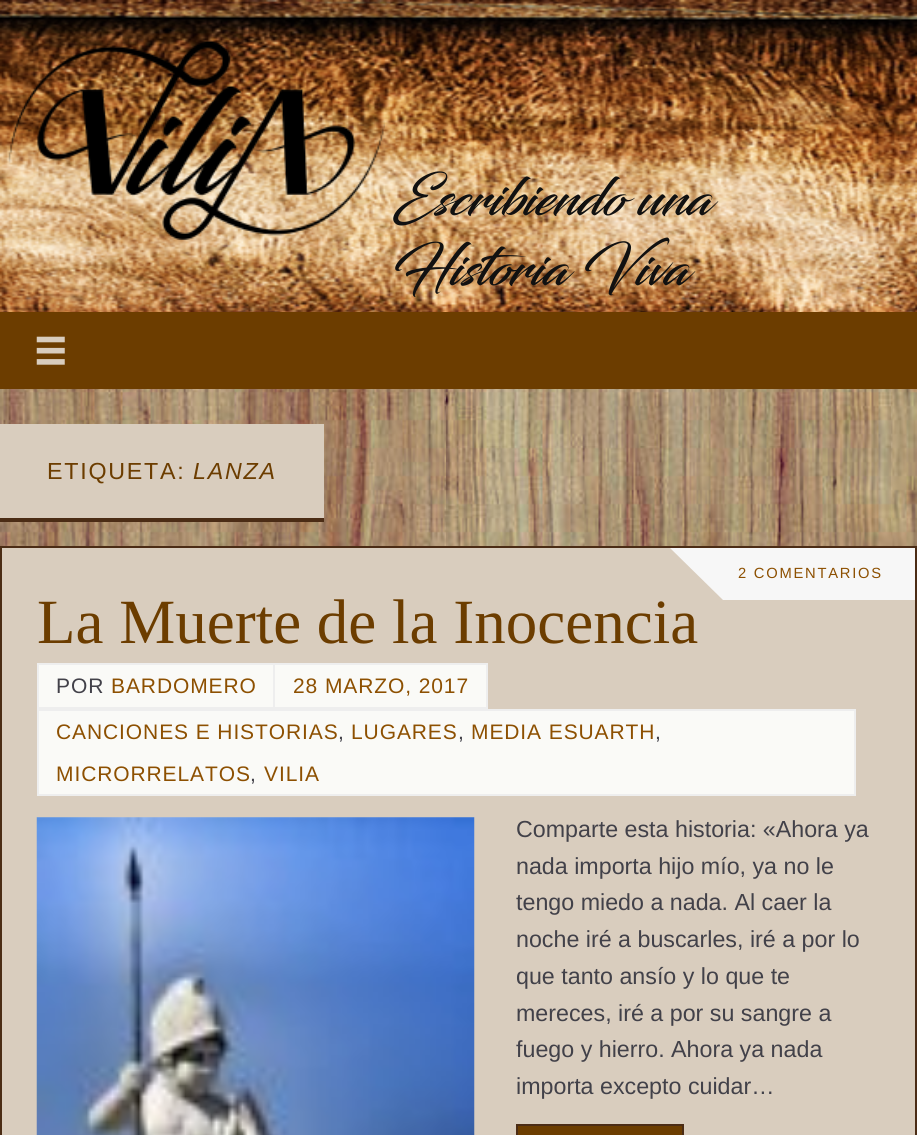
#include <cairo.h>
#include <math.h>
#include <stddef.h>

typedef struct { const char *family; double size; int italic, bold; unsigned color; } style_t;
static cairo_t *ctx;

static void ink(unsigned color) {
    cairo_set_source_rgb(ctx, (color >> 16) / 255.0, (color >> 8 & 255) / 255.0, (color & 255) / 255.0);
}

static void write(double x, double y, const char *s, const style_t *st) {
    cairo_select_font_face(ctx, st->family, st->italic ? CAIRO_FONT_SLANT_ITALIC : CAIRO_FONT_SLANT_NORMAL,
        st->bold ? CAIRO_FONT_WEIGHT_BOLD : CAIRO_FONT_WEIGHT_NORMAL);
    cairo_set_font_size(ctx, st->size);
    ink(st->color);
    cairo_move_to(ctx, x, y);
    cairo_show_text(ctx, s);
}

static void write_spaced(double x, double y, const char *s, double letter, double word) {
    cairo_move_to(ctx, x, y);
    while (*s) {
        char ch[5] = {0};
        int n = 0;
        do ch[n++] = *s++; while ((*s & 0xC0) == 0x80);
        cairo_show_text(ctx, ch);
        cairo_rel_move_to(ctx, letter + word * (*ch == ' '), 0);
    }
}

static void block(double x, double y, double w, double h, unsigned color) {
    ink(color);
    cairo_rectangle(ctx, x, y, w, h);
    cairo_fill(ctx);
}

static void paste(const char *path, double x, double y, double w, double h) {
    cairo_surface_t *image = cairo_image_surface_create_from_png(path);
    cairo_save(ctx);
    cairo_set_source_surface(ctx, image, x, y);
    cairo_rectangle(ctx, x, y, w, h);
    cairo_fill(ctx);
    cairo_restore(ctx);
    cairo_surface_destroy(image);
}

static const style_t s1 = {"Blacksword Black", 52.5, 0, 0, 0x111111};
static const style_t s2 = {"Liberation Serif", 63, 0, 0, 0x6c3d00};
static const style_t s3 = {"Liberation Sans", 23.25, 0, 0, 0x424149};

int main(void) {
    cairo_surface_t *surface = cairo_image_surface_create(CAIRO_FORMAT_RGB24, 917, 1135);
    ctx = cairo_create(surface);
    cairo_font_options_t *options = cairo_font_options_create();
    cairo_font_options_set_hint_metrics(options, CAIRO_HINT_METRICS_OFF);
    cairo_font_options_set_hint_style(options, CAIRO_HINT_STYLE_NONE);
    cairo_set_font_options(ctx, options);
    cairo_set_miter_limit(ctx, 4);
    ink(0xffffff);
    cairo_paint(ctx);
    paste("pic1.png", 0, 389, 917, 157);
    paste("pic2.png", 0, 0, 917, 312);
    paste("pic3.png", 8, 40, 377, 200);
    write(393, 215, "Escribiendo una", &s1);
    write(393, 285, "Historia Viva", &s1);
    block(0, 312, 917, 77, 0x6c3d00);
    paste("pic4.png", 36, 336, 29, 29);
    block(0, 424, 324, 94, 0xd9cdbe);
    block(0, 518, 324, 4, 0x4b2c15);
    cairo_select_font_face(ctx, "Liberation Sans", CAIRO_FONT_SLANT_NORMAL, CAIRO_FONT_WEIGHT_NORMAL);
    cairo_set_font_size(ctx, 23.25);
    ink(0x6c3d00);
    write_spaced(47, 479, "ETIQUETA:", 1.75, 0);
    cairo_select_font_face(ctx, "Liberation Sans", CAIRO_FONT_SLANT_ITALIC, CAIRO_FONT_WEIGHT_NORMAL);
    write_spaced(193, 479, "LANZA", 1.75, 0);
    ink(0xd9cdbe);
    cairo_rectangle(ctx, 1, 547, 915, 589);
    cairo_fill_preserve(ctx);
    ink(0x4b2c15);
    cairo_stroke(ctx);
    block(723, 548, 192, 52, 0xf7f7f7);
    write(37, 643, "La Muerte de la Inocencia", &s2);
    ink(0xf7f7f7);
    cairo_new_path(ctx);
    cairo_move_to(ctx, 670, 548);
    cairo_line_to(ctx, 723, 548);
    cairo_line_to(ctx, 723, 600);
    cairo_close_path(ctx);
    cairo_fill(ctx);
    cairo_select_font_face(ctx, "Liberation Sans", CAIRO_FONT_SLANT_NORMAL, CAIRO_FONT_WEIGHT_NORMAL);
    cairo_set_font_size(ctx, 14.75);
    ink(0x8d5001);
    write_spaced(738, 578, "2 COMENTARIOS", 1.75, 0);
    ink(0xfafaf7);
    cairo_rectangle(ctx, 38, 664, 236, 44);
    cairo_fill_preserve(ctx);
    ink(0xeeeeee);
    cairo_stroke(ctx);
    cairo_set_font_size(ctx, 21);
    ink(0x424149);
    write_spaced(56, 693, "POR", 0.9, 0);
    ink(0x8d5001);
    write_spaced(111, 693, "BARDOMERO", 0.9, 0);
    ink(0xfafaf7);
    cairo_rectangle(ctx, 274, 664, 213, 44);
    cairo_fill_preserve(ctx);
    ink(0xeeeeee);
    cairo_stroke(ctx);
    ink(0x8d5001);
    write_spaced(293, 693, "28 MARZO, 2017", 0.9, 0);
    ink(0xfafaf7);
    cairo_rectangle(ctx, 38, 710, 817, 85);
    cairo_fill_preserve(ctx);
    ink(0xeeeeee);
    cairo_stroke(ctx);
    ink(0x8d5001);
    write_spaced(56, 739, "CANCIONES E HISTORIAS", 0.9, 0);
    ink(0x424149);
    write_spaced(338, 739, ",", 0.9, 0);
    ink(0x8d5001);
    write_spaced(351, 739, "LUGARES", 0.9, 0);
    ink(0x424149);
    write_spaced(458, 739, ",", 0.9, 0);
    ink(0x8d5001);
    write_spaced(471, 739, "MEDIA ESUARTH", 0.9, 0);
    ink(0x424149);
    write_spaced(655, 739, ",", 0.9, 0);
    ink(0x8d5001);
    write_spaced(56, 781, "MICRORRELATOS", 0.9, 0);
    ink(0x424149);
    write_spaced(250, 781, ",", 0.9, 0);
    ink(0x8d5001);
    write_spaced(264, 781, "VILIA", 0.9, 0);
    paste("pic5.png", 36, 817, 439, 318);
    write(516, 837, "Comparte esta historia: «Ahora ya", &s3);
    write(516, 874, "nada importa hijo mío, ya no le", &s3);
    write(516, 910, "tengo miedo a nada. Al caer la", &s3);
    write(516, 947, "noche iré a buscarles, iré a por lo", &s3);
    write(516, 984, "que tanto ansío y lo que te", &s3);
    write(516, 1021, "mereces, iré a por su sangre a", &s3);
    write(516, 1057, "fuego y hierro. Ahora ya nada", &s3);
    write(516, 1094, "importa excepto cuidar…", &s3);
    ink(0x6c3d00);
    cairo_rectangle(ctx, 517, 1125, 166, 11);
    cairo_fill_preserve(ctx);
    ink(0x4b2c15);
    cairo_stroke(ctx);
    cairo_surface_write_to_png(surface, "screenshot.png");
    cairo_font_options_destroy(options);
    cairo_destroy(ctx);
    cairo_surface_destroy(surface);
    return 0;
}
